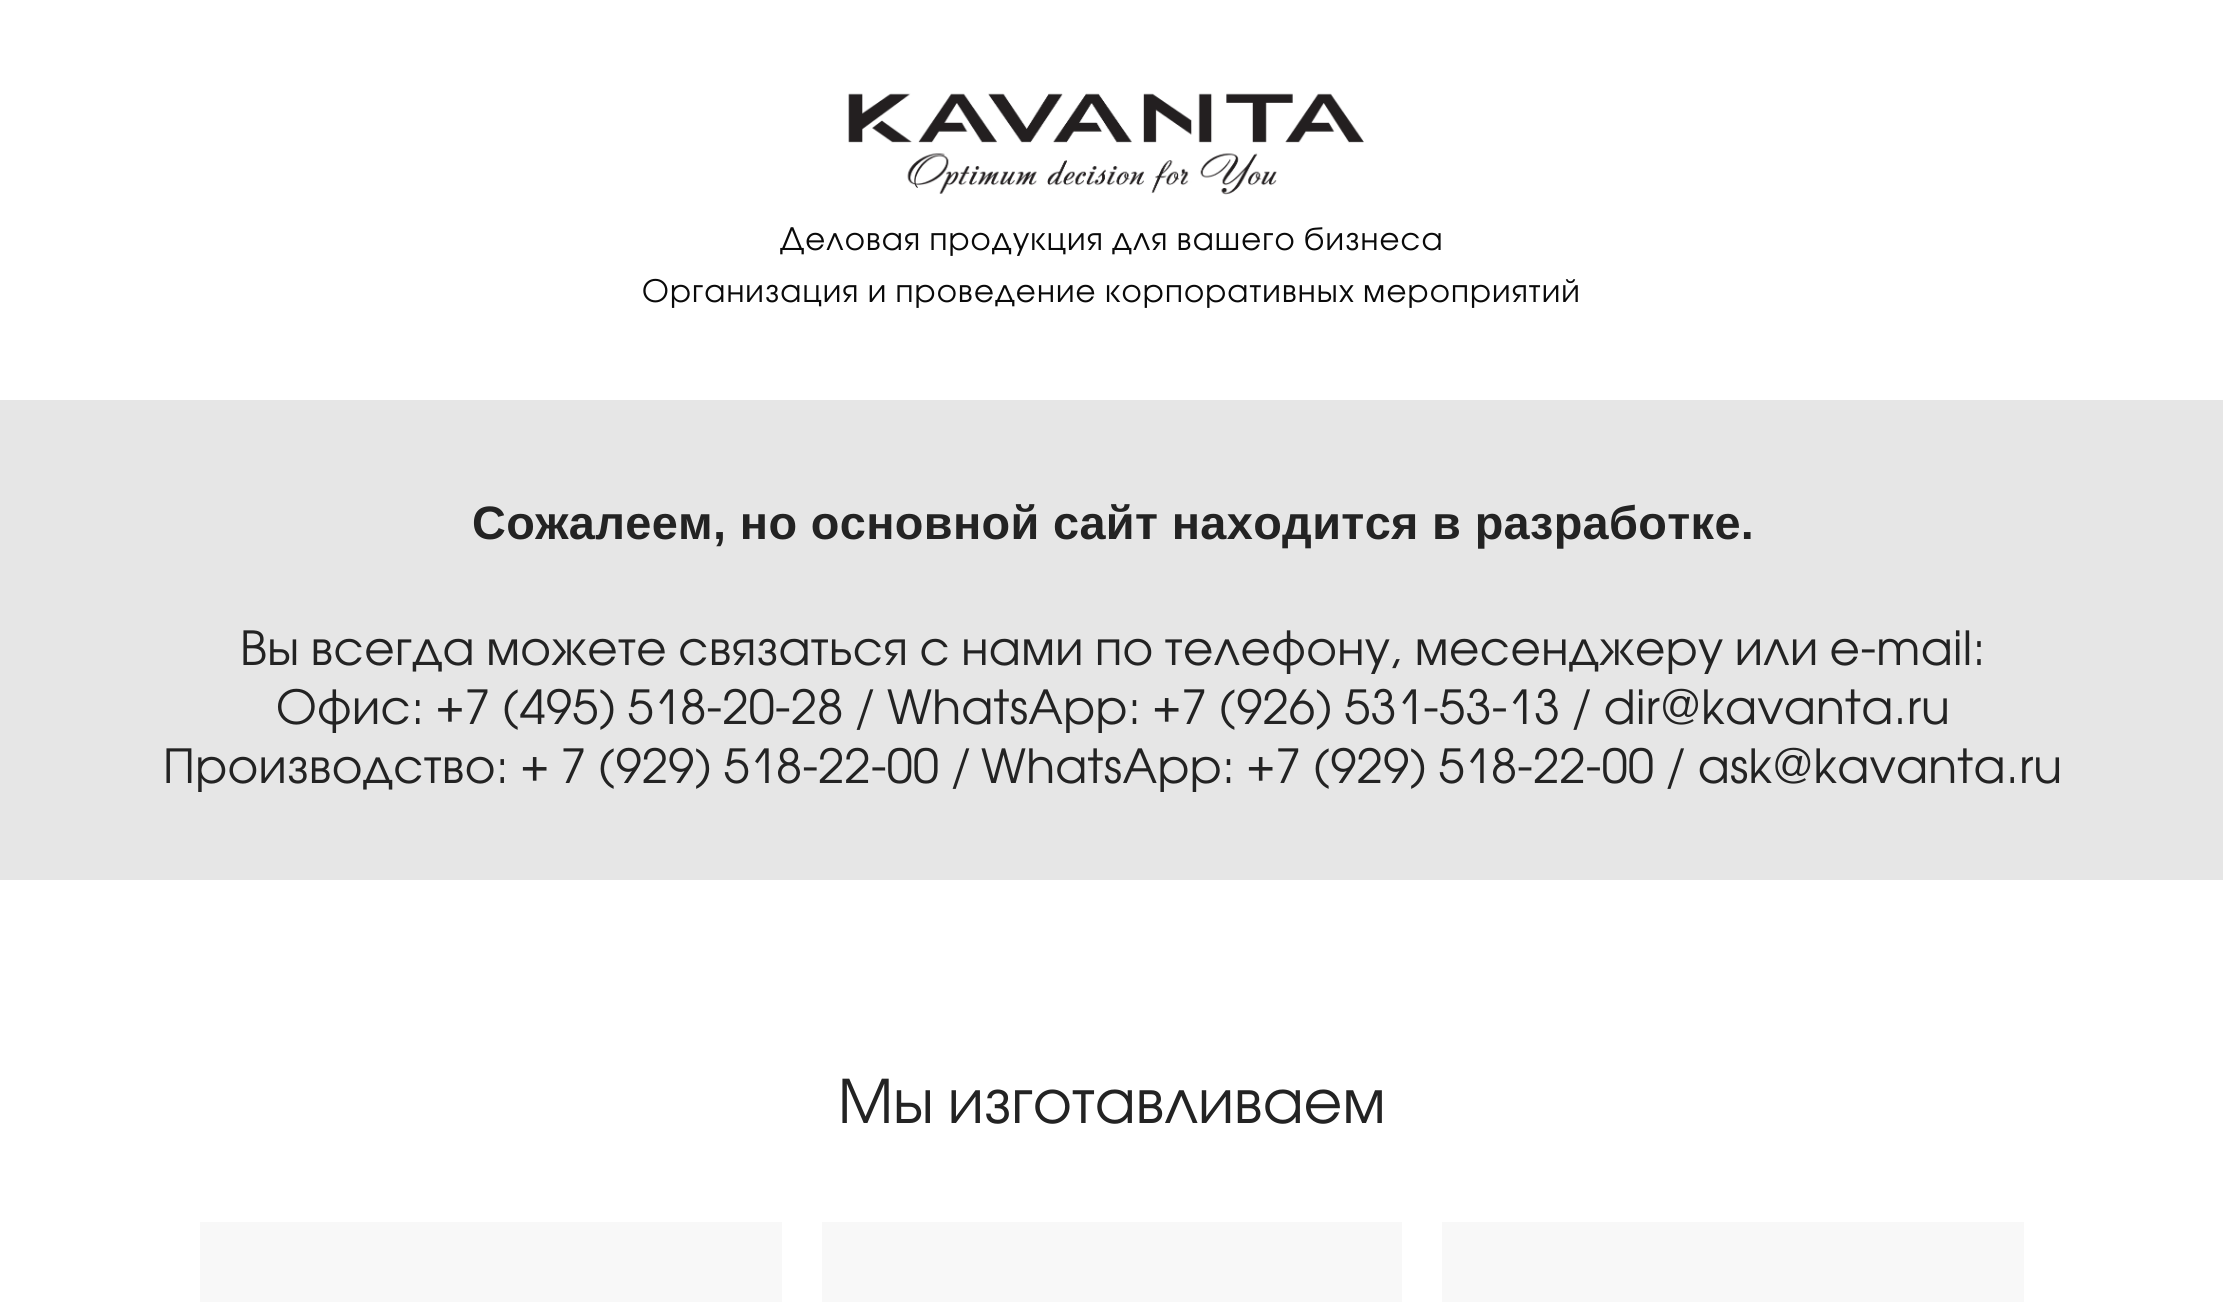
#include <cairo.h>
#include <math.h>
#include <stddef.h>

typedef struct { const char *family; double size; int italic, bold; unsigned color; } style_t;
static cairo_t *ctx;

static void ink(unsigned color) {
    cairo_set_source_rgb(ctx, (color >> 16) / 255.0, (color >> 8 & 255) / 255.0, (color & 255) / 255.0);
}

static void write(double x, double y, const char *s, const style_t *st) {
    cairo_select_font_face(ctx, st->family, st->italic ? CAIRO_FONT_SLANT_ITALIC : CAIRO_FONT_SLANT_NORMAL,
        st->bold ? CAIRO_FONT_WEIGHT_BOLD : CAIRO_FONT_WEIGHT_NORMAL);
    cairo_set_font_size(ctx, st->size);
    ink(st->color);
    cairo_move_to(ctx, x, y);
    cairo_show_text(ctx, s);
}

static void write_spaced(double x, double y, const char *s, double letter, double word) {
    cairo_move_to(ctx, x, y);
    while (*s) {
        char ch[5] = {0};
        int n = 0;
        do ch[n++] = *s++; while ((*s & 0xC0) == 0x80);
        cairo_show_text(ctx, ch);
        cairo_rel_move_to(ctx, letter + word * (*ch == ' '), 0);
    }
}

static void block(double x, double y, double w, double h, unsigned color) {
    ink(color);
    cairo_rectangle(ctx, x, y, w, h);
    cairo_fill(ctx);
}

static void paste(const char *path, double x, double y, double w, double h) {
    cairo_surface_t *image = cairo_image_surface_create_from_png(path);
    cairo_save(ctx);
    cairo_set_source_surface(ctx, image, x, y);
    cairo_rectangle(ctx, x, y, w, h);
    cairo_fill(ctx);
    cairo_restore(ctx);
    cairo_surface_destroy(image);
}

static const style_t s1 = {"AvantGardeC", 59.9, 0, 0, 0x232323};

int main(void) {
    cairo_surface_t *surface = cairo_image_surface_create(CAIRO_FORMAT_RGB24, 2223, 1302);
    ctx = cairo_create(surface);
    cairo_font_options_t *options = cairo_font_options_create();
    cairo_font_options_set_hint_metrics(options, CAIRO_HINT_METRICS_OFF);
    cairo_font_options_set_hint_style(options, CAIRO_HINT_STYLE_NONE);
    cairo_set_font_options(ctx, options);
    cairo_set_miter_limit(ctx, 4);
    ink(0xffffff);
    cairo_paint(ctx);
    paste("pic1.png", 848, 93, 516, 102);
    cairo_select_font_face(ctx, "AvantGardeC", CAIRO_FONT_SLANT_NORMAL, CAIRO_FONT_WEIGHT_NORMAL);
    cairo_set_font_size(ctx, 30.8);
    ink(0x0a0a0a);
    write_spaced(780, 250, "Деловая продукция для вашего бизнеса", 1.12, 0);
    write_spaced(642, 302, "Организация и проведение корпоративных мероприятий", 1.12, 0);
    block(0, 400, 2223, 480, 0xe6e6e6);
    cairo_select_font_face(ctx, "Liberation Sans", CAIRO_FONT_SLANT_NORMAL, CAIRO_FONT_WEIGHT_BOLD);
    cairo_set_font_size(ctx, 46.85);
    ink(0x232323);
    write_spaced(472, 539, "Сожалеем, но основной сайт находится в разработке.", 0.35, 0);
    cairo_select_font_face(ctx, "AvantGardeC", CAIRO_FONT_SLANT_NORMAL, CAIRO_FONT_WEIGHT_NORMAL);
    write_spaced(240, 665, "Вы всегда можете связаться с нами по телефону, месенджеру или e-mail:", 0.35, 0);
    write_spaced(276, 724, "Офис: +7 (495) 518-20-28 / WhatsApp: +7 (926) 531-53-13 / dir@kavanta.ru", 0.35, 0);
    write_spaced(163, 783, "Производство: + 7 (929) 518-22-00 /", 0.35, 0);
    write_spaced(981, 783, "WhatsApp: +7 (929) 518-22-00 / ask@kavanta.ru", 0.35, 0);
    write(838, 1123, "Мы изготавливаем", &s1);
    block(200, 1222, 582, 80, 0xf8f8f8);
    block(822, 1222, 580, 80, 0xf8f8f8);
    block(1442, 1222, 582, 80, 0xf8f8f8);
    cairo_surface_write_to_png(surface, "screenshot.png");
    cairo_font_options_destroy(options);
    cairo_destroy(ctx);
    cairo_surface_destroy(surface);
    return 0;
}
